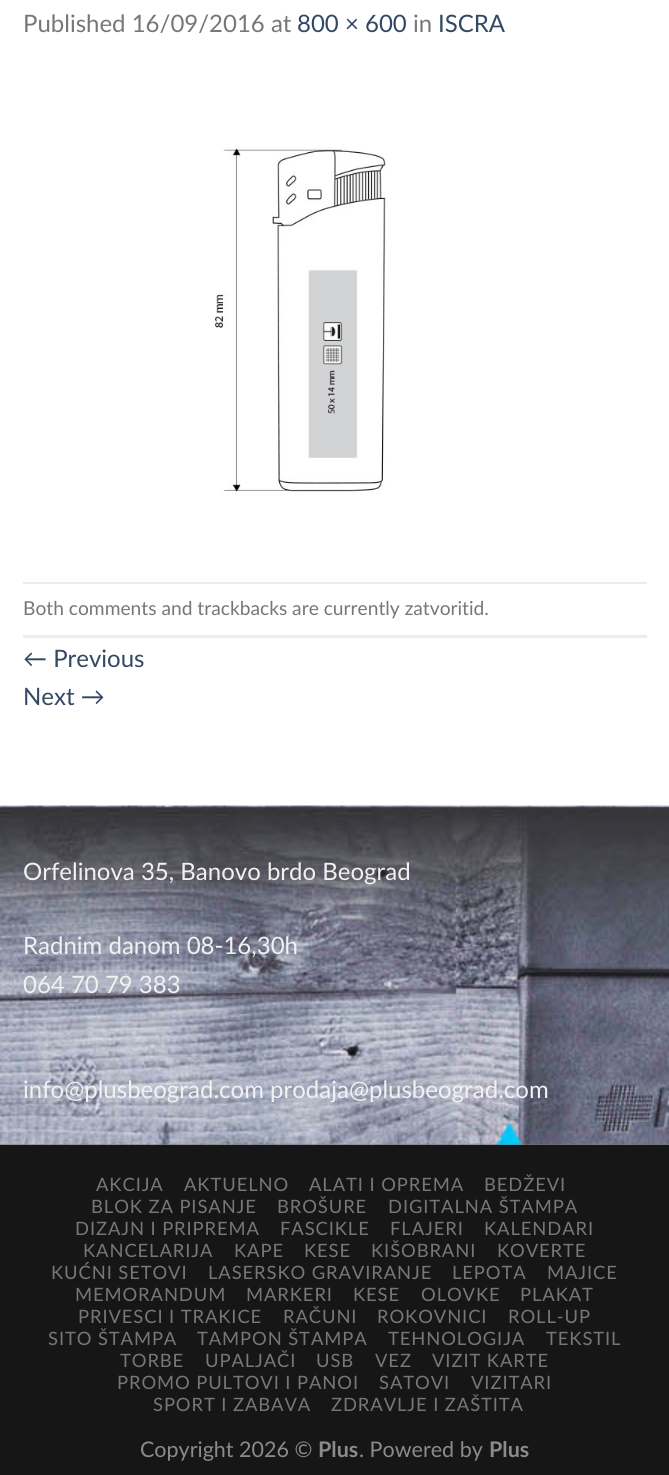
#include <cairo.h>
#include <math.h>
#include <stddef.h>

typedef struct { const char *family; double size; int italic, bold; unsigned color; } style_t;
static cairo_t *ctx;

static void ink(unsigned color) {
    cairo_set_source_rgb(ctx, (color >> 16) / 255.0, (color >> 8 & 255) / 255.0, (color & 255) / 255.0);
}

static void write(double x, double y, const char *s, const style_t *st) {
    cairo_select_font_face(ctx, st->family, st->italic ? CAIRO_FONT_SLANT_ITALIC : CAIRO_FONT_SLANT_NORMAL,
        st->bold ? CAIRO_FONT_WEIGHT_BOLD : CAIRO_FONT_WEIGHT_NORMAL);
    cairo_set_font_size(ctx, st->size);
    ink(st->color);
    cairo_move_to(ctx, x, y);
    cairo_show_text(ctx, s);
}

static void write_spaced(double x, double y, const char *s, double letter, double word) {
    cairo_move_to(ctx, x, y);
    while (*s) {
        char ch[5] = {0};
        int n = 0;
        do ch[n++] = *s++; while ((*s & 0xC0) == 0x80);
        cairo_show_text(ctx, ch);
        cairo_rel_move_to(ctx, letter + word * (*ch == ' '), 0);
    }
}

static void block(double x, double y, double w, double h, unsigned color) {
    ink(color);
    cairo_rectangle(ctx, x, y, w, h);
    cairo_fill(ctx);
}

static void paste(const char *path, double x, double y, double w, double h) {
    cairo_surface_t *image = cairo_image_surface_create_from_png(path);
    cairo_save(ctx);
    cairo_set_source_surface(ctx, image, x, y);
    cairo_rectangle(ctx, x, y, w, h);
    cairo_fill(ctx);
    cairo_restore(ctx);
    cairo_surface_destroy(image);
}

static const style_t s1 = {"Lato", 24, 0, 0, 0x777777};
static const style_t s2 = {"Lato", 24, 0, 0, 0x334862};
static const style_t s3 = {"Lato", 19.2, 0, 0, 0x777777};
static const style_t s4 = {"Lato", 24, 0, 0, 0xf1f1f1};
static const style_t s5 = {"Lato", 21.5, 0, 0, 0x8b8b8b};
static const style_t s6 = {"Lato", 21.5, 0, 1, 0x8b8b8b};

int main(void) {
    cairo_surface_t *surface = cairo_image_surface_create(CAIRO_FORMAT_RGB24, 669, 1475);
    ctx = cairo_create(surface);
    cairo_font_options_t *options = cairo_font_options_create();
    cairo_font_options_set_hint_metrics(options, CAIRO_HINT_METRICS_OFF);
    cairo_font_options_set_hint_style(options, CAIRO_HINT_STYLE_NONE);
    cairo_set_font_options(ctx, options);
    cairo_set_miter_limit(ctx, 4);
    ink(0xffffff);
    cairo_paint(ctx);
    write(23, 32, "Published 16/09/2016 at", &s1);
    write(297, 32, "800 × 600", &s2);
    write(413, 32, "in", &s1);
    write(438, 32, "ISCRA", &s2);
    paste("pic1.png", 211, 147, 175, 349);
    block(23, 582, 624, 2, 0xececec);
    block(23, 635, 624, 3, 0xececec);
    write(23, 615, "Both comments and trackbacks are currently zatvoritid.", &s3);
    write(23, 667, "← Previous", &s2);
    write(23, 705, "Next →", &s2);
    block(0, 1144, 669, 1, 0x777777);
    paste("pic2.png", 0, 805, 669, 340);
    cairo_set_source_rgba(ctx, 0, 0, 0, 0.05);
    cairo_rectangle(ctx, 0, 806, 669, 2);
    cairo_fill(ctx);
    write(23, 880, "Orfelinova 35, Banovo brdo Beograd", &s4);
    write(23, 954, "Radnim danom 08-16,30h", &s4);
    write(23, 993, "064 70 79 383", &s4);
    write(23, 1098, "info@plusbeograd.com prodaja@plusbeograd.com", &s4);
    block(0, 1145, 669, 330, 0x161616);
    cairo_set_font_size(ctx, 18.4);
    ink(0x777777);
    write_spaced(96, 1191, "AKCIJA", 0.9, 0);
    write_spaced(184, 1191, "AKTUELNO", 0.9, 0);
    write_spaced(309, 1191, "ALATI I OPREMA", 0.9, 0);
    write_spaced(484, 1191, "BEDŽEVI", 0.9, 0);
    write_spaced(91, 1213, "BLOK ZA PISANJE", 0.9, 0);
    write_spaced(277, 1213, "BROŠURE", 0.9, 0);
    write_spaced(388, 1213, "DIGITALNA ŠTAMPA", 0.9, 0);
    write_spaced(75, 1235, "DIZAJN I PRIPREMA", 0.9, 0);
    write_spaced(280, 1235, "FASCIKLE", 0.9, 0);
    write_spaced(390, 1235, "FLAJERI", 0.9, 0);
    write_spaced(484, 1235, "KALENDARI", 0.9, 0);
    write_spaced(83, 1257, "KANCELARIJA", 0.9, 0);
    write_spaced(234, 1257, "KAPE", 0.9, 0);
    write_spaced(304, 1257, "KESE", 0.9, 0);
    write_spaced(371, 1257, "KIŠOBRANI", 0.9, 0);
    write_spaced(497, 1257, "KOVERTE", 0.9, 0);
    write_spaced(51, 1279, "KUĆNI SETOVI", 0.9, 0);
    write_spaced(208, 1279, "LASERSKO GRAVIRANJE", 0.9, 0);
    write_spaced(452, 1279, "LEPOTA", 0.9, 0);
    write_spaced(547, 1279, "MAJICE", 0.9, 0);
    write_spaced(75, 1301, "MEMORANDUM", 0.9, 0);
    write_spaced(246, 1301, "MARKERI", 0.9, 0);
    write_spaced(353, 1301, "KESE", 0.9, 0);
    write_spaced(421, 1301, "OLOVKE", 0.9, 0);
    write_spaced(520, 1301, "PLAKAT", 0.9, 0);
    write_spaced(78, 1323, "PRIVESCI I TRAKICE", 0.9, 0);
    write_spaced(283, 1323, "RAČUNI", 0.9, 0);
    write_spaced(377, 1323, "ROKOVNICI", 0.9, 0);
    write_spaced(508, 1323, "ROLL-UP", 0.9, 0);
    write_spaced(48, 1345, "SITO ŠTAMPA", 0.9, 0);
    write_spaced(197, 1345, "TAMPON ŠTAMPA", 0.9, 0);
    write_spaced(388, 1345, "TEHNOLOGIJA", 0.9, 0);
    write_spaced(546, 1345, "TEKSTIL", 0.9, 0);
    write_spaced(120, 1367, "TORBE", 0.9, 0);
    write_spaced(205, 1367, "UPALJAČI", 0.9, 0);
    write_spaced(316, 1367, "USB", 0.9, 0);
    write_spaced(375, 1367, "VEZ", 0.9, 0);
    write_spaced(432, 1367, "VIZIT KARTE", 0.9, 0);
    write_spaced(117, 1389, "PROMO PULTOVI I PANOI", 0.9, 0);
    write_spaced(379, 1389, "SATOVI", 0.9, 0);
    write_spaced(471, 1389, "VIZITARI", 0.9, 0);
    write_spaced(153, 1411, "SPORT I ZABAVA", 0.9, 0);
    write_spaced(331, 1411, "ZDRAVLJE I ZAŠTITA", 0.9, 0);
    write(140, 1457, "Copyright 2026 ©", &s5);
    write(318, 1457, "Plus", &s6);
    write(359, 1457, ". Powered by", &s5);
    write(489, 1457, "Plus", &s6);
    cairo_surface_write_to_png(surface, "screenshot.png");
    cairo_font_options_destroy(options);
    cairo_destroy(ctx);
    cairo_surface_destroy(surface);
    return 0;
}
